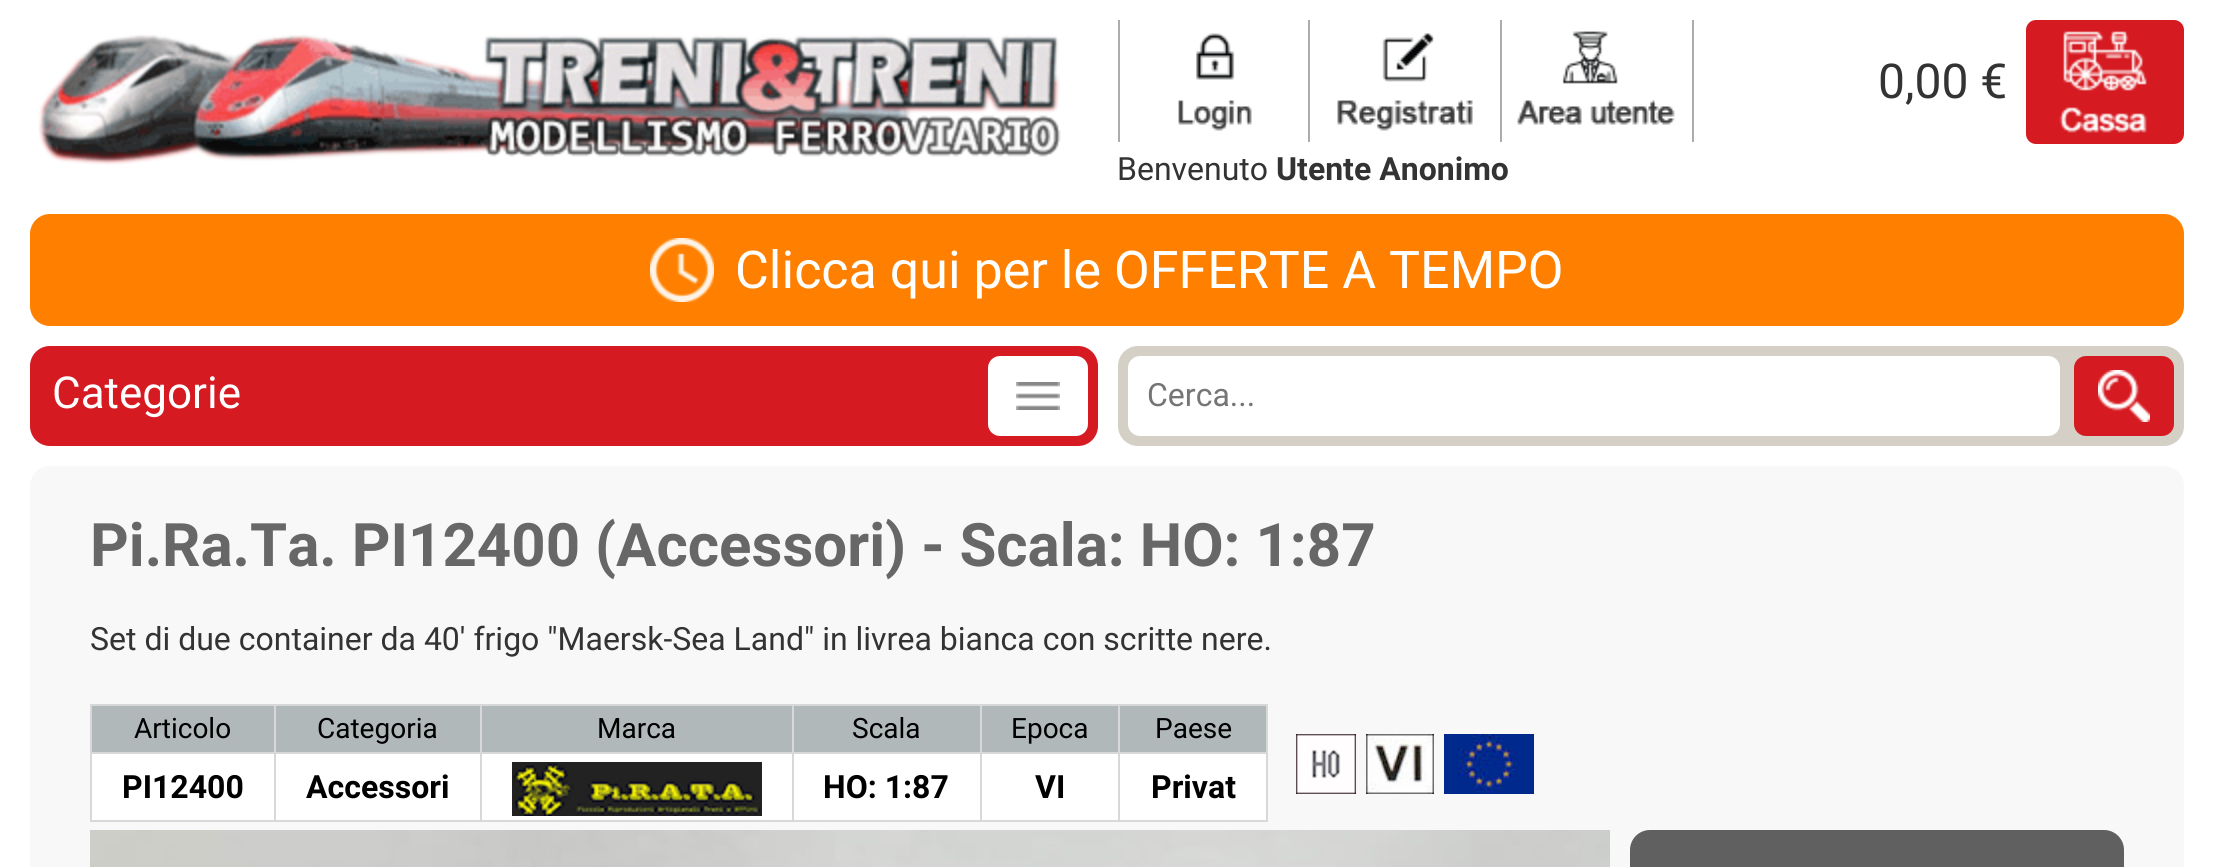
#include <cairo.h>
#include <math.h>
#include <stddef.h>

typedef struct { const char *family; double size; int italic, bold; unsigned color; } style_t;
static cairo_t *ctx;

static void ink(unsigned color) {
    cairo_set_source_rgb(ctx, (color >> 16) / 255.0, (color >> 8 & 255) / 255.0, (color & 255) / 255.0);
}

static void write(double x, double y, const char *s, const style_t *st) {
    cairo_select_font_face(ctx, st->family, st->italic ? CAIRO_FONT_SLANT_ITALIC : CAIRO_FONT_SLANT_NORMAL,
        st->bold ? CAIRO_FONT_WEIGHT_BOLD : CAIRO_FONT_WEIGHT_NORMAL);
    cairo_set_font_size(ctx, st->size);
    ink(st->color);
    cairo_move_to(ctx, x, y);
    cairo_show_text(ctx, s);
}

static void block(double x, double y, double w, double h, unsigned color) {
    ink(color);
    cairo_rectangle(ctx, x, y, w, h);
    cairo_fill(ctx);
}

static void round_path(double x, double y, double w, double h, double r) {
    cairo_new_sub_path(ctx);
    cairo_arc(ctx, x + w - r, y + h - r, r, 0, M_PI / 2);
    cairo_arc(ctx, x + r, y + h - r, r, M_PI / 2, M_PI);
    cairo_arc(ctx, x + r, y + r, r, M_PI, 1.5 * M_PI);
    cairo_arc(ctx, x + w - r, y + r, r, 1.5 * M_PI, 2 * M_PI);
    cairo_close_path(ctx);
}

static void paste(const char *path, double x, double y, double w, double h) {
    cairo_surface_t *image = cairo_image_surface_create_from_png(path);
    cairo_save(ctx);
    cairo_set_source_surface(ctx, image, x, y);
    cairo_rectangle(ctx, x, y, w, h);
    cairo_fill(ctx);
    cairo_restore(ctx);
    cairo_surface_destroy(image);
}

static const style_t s1 = {"Roboto", 48, 0, 0, 0x333333};
static const style_t s2 = {"Roboto", 32, 0, 0, 0x333333};
static const style_t s3 = {"Roboto", 32, 0, 1, 0x333333};
static const style_t s4 = {"Roboto", 52, 0, 0, 0xffffff};
static const style_t s5 = {"Roboto", 44, 0, 0, 0xffffff};
static const style_t s6 = {"Roboto", 32, 0, 0, 0x757575};
static const style_t s7 = {"Roboto", 60, 0, 1, 0x676767};
static const style_t s8 = {"Roboto", 28, 0, 0, 0x000000};
static const style_t s9 = {"Roboto", 32, 0, 1, 0x000000};

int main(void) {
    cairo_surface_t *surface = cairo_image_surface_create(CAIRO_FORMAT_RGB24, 2213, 867);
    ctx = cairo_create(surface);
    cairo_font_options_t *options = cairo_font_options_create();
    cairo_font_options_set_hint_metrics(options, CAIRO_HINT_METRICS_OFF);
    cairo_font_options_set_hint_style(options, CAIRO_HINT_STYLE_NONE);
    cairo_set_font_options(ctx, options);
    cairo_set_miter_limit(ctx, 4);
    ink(0xffffff);
    cairo_paint(ctx);
    paste("pic1.png", 38, 34, 1023, 131);
    block(1308, 20, 2, 122, 0xacacac);
    block(1118, 20, 2, 122, 0xacacac);
    paste("pic2.png", 1178, 33, 74, 98);
    block(1500, 20, 2, 122, 0xacacac);
    paste("pic3.png", 1337, 33, 136, 98);
    block(1692, 20, 2, 122, 0xacacac);
    paste("pic4.png", 1517, 31, 158, 94);
    write(1878, 98, "0,00 €", &s1);
    ink(0xd61a21);
    round_path(2026, 20, 158, 124, 10);
    cairo_fill(ctx);
    paste("pic5.png", 2059, 31, 88, 102);
    write(1117, 180, "Benvenuto", &s2);
    write(1276, 180, "Utente Anonimo", &s3);
    ink(0xff8000);
    round_path(30, 214, 2154, 112, 20);
    cairo_fill(ctx);
    paste("pic6.png", 650, 238, 64, 64);
    write(735, 288, "Clicca qui per le OFFERTE A TEMPO", &s4);
    ink(0xd61a21);
    round_path(30, 346, 1068, 100, 20);
    cairo_fill(ctx);
    write(52, 408, "Categorie", &s5);
    round_path(988, 356, 100, 80, 12);
    cairo_fill(ctx);
    paste("pic7.png", 1016, 382, 44, 28);
    ink(0xd5d0c5);
    round_path(1118, 346, 1066, 100, 20);
    cairo_fill(ctx);
    ink(0xffffff);
    round_path(1128, 356, 932, 80, 12);
    cairo_fill(ctx);
    write(1147, 406, "Cerca...", &s6);
    ink(0xd61a21);
    round_path(2074, 356, 100, 80, 12);
    cairo_fill(ctx);
    paste("pic8.png", 2098, 370, 52, 52);
    ink(0xf8f8f8);
    round_path(30, 466, 2154, 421, 20);
    cairo_fill(ctx);
    write(90, 566, "Pi.Ra.Ta. PI12400 (Accessori) - Scala: HO: 1:87", &s7);
    write(90, 650, "Set di due container da 40' frigo \"Maersk-Sea Land\" in livrea bianca con scritte nere.", &s2);
    cairo_rectangle(ctx, 91, 705, 184, 116);
    ink(0xd8d8d8);
    cairo_stroke(ctx);
    block(92, 706, 182, 46, 0xb1b8b9);
    write(134, 738, "Articolo", &s8);
    block(92, 754, 182, 66, 0xffffff);
    block(92, 752, 182, 2, 0xd8d8d8);
    write(122, 798, "PI12400", &s9);
    cairo_rectangle(ctx, 275, 705, 206, 116);
    ink(0xd8d8d8);
    cairo_stroke(ctx);
    block(276, 706, 204, 46, 0xb1b8b9);
    write(317, 738, "Categoria", &s8);
    block(276, 754, 204, 66, 0xffffff);
    block(276, 752, 204, 2, 0xd8d8d8);
    write(306, 798, "Accessori", &s9);
    cairo_rectangle(ctx, 481, 705, 312, 116);
    ink(0xd8d8d8);
    cairo_stroke(ctx);
    block(482, 706, 310, 46, 0xb1b8b9);
    write(597, 738, "Marca", &s8);
    block(482, 754, 310, 66, 0xffffff);
    block(482, 752, 310, 2, 0xd8d8d8);
    paste("pic9.png", 512, 762, 250, 54);
    cairo_rectangle(ctx, 793, 705, 188, 116);
    cairo_stroke(ctx);
    block(794, 706, 186, 46, 0xb1b8b9);
    write(852, 738, "Scala", &s8);
    block(794, 754, 186, 66, 0xffffff);
    block(794, 752, 186, 2, 0xd8d8d8);
    write(823, 798, "HO: 1:87", &s9);
    cairo_rectangle(ctx, 981, 705, 138, 116);
    ink(0xd8d8d8);
    cairo_stroke(ctx);
    block(982, 706, 136, 46, 0xb1b8b9);
    write(1011, 738, "Epoca", &s8);
    block(982, 754, 136, 66, 0xffffff);
    block(982, 752, 136, 2, 0xd8d8d8);
    write(1035, 798, "VI", &s9);
    cairo_rectangle(ctx, 1119, 705, 148, 116);
    ink(0xd8d8d8);
    cairo_stroke(ctx);
    block(1120, 706, 146, 46, 0xb1b8b9);
    write(1155, 738, "Paese", &s8);
    block(1120, 754, 146, 66, 0xffffff);
    block(1120, 752, 146, 2, 0xd8d8d8);
    write(1151, 798, "Privat", &s9);
    paste("pic10.png", 1296, 734, 60, 60);
    paste("pic11.png", 1366, 734, 68, 60);
    paste("pic12.png", 1444, 734, 90, 60);
    paste("pic13.png", 90, 830, 1520, 37);
    ink(0x606060);
    round_path(1630, 830, 494, 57, 20);
    cairo_fill(ctx);
    cairo_surface_write_to_png(surface, "screenshot.png");
    cairo_font_options_destroy(options);
    cairo_destroy(ctx);
    cairo_surface_destroy(surface);
    return 0;
}
